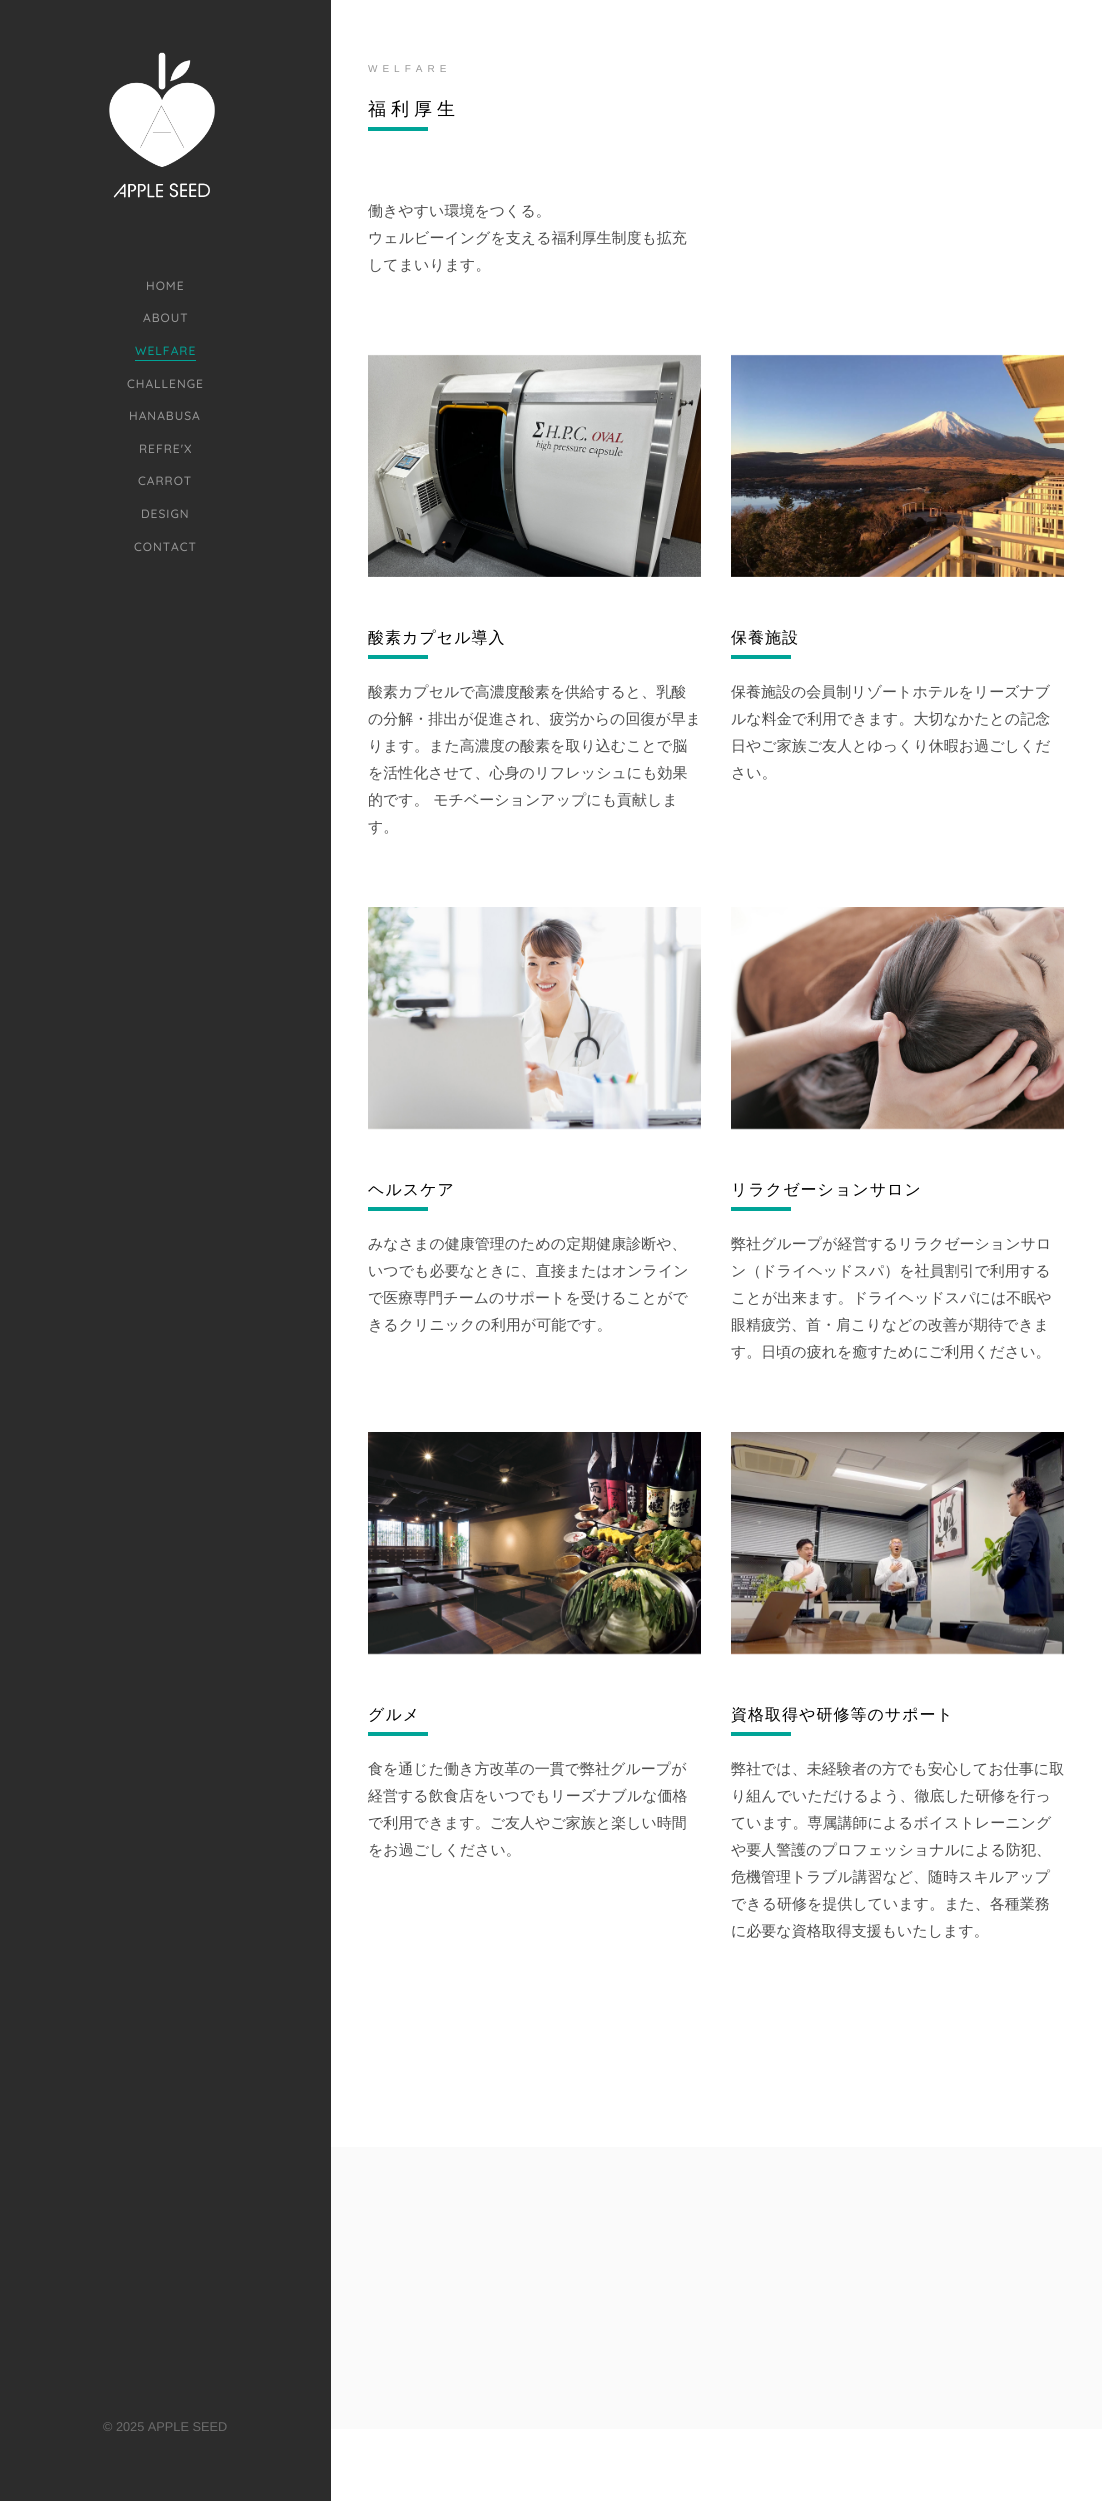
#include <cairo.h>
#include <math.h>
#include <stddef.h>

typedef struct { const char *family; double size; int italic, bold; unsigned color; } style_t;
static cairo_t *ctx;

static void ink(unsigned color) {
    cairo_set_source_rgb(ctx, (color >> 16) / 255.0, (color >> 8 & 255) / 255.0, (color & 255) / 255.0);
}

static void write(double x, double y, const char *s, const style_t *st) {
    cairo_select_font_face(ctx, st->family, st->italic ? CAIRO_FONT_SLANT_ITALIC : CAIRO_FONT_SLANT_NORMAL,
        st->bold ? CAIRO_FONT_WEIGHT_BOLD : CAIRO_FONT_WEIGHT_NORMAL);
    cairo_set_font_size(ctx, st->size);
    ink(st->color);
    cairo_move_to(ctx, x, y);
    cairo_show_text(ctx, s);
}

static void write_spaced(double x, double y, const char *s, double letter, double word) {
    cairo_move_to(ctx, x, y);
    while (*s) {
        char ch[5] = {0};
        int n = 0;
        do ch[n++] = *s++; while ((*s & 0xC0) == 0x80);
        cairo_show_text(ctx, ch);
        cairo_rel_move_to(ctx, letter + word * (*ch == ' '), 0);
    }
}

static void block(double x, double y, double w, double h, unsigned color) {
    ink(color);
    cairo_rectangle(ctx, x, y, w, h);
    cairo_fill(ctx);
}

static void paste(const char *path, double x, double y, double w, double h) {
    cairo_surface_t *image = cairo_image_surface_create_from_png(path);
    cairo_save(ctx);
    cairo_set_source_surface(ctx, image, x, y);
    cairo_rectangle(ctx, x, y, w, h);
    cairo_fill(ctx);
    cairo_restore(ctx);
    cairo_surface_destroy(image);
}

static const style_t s1 = {"Liberation Sans", 12.75, 0, 0, 0x6b6b6b};
static const style_t s2 = {"WenQuanYi Zen Hei Medium", 15, 0, 0, 0x4d4d4d};

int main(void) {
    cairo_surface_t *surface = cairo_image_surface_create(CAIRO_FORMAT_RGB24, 1102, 2501);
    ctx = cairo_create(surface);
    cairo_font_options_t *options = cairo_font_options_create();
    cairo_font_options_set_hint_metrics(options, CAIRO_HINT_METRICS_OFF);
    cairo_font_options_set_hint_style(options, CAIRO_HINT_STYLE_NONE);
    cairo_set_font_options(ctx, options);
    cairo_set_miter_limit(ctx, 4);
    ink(0xffffff);
    cairo_paint(ctx);
    block(0, 0, 331, 2501, 0x2c2c2c);
    paste("pic1.png", 109, 52, 106, 146);
    cairo_select_font_face(ctx, "Quicksand Medium", CAIRO_FONT_SLANT_NORMAL, CAIRO_FONT_WEIGHT_NORMAL);
    cairo_set_font_size(ctx, 12);
    ink(0x999999);
    write_spaced(146, 290, "HOME", 1, 0);
    write_spaced(143, 322, "ABOUT", 1, 0);
    ink(0x00a497);
    write_spaced(135, 355, "WELFARE", 1, 0);
    block(135, 360, 61, 1, 0x00a497);
    ink(0x999999);
    write_spaced(127, 388, "CHALLENGE", 1, 0);
    write_spaced(129, 420, "HANABUSA", 1, 0);
    write_spaced(139, 453, "REFRE'X", 1, 0);
    write_spaced(138, 485, "CARROT", 1, 0);
    write_spaced(141, 518, "DESIGN", 1, 0);
    write_spaced(134, 551, "CONTACT", 1, 0);
    write(103, 2431, "© 2025 APPLE SEED", &s1);
    cairo_set_font_size(ctx, 10);
    ink(0x999999);
    write_spaced(368, 72, "WELFARE", 5, 0);
    cairo_select_font_face(ctx, "WenQuanYi Zen Hei Medium", CAIRO_FONT_SLANT_NORMAL, CAIRO_FONT_WEIGHT_NORMAL);
    cairo_set_font_size(ctx, 18);
    ink(0x000000);
    write_spaced(368, 115, "福利厚生", 5, 0);
    block(368, 127, 60, 4, 0x00a497);
    write(368, 216, "働きやすい環境をつくる。", &s2);
    write(368, 243, "ウェルビーイングを支える福利厚生制度も拡充", &s2);
    write(368, 270, "してまいります。", &s2);
    paste("pic2.png", 368, 354, 333, 223);
    cairo_set_font_size(ctx, 16);
    ink(0x000000);
    write_spaced(368, 643, "酸素カプセル導入", 1, 0);
    block(368, 655, 60, 4, 0x00a497);
    write(368, 697, "酸素カプセルで高濃度酸素を供給すると、乳酸", &s2);
    write(368, 724, "の分解・排出が促進され、疲労からの回復が早ま", &s2);
    write(368, 751, "ります。また高濃度の酸素を取り込むことで脳", &s2);
    write(368, 778, "を活性化させて、心身のリフレッシュにも効果", &s2);
    write(368, 805, "的です。 モチベーションアップにも貢献しま", &s2);
    write(368, 832, "す。", &s2);
    paste("pic3.png", 731, 354, 333, 223);
    cairo_set_font_size(ctx, 16);
    ink(0x000000);
    write_spaced(731, 643, "保養施設", 1, 0);
    block(731, 655, 60, 4, 0x00a497);
    write(731, 697, "保養施設の会員制リゾートホテルをリーズナブ", &s2);
    write(731, 724, "ルな料金で利用できます。大切なかたとの記念", &s2);
    write(731, 751, "日やご家族ご友人とゆっくり休暇お過ごしくだ", &s2);
    write(731, 778, "さい。", &s2);
    paste("pic4.png", 368, 907, 333, 223);
    cairo_set_font_size(ctx, 16);
    ink(0x000000);
    write_spaced(368, 1195, "ヘルスケア", 1, 0);
    block(368, 1207, 60, 4, 0x00a497);
    write(368, 1249, "みなさまの健康管理のための定期健康診断や、", &s2);
    write(368, 1276, "いつでも必要なときに、直接またはオンライン", &s2);
    write(368, 1303, "で医療専門チームのサポートを受けることがで", &s2);
    write(368, 1330, "きるクリニックの利用が可能です。", &s2);
    paste("pic5.png", 731, 907, 333, 223);
    cairo_set_font_size(ctx, 16);
    ink(0x000000);
    write_spaced(731, 1195, "リラクゼーションサロン", 1, 0);
    block(731, 1207, 60, 4, 0x00a497);
    write(731, 1249, "弊社グループが経営するリラクゼーションサロ", &s2);
    write(731, 1276, "ン（ドライヘッドスパ）を社員割引で利用する", &s2);
    write(731, 1303, "ことが出来ます。ドライヘッドスパには不眠や", &s2);
    write(731, 1330, "眼精疲労、首・肩こりなどの改善が期待できま", &s2);
    write(731, 1357, "す。日頃の疲れを癒すためにご利用ください。", &s2);
    paste("pic6.png", 368, 1432, 333, 223);
    cairo_set_font_size(ctx, 16);
    ink(0x000000);
    write_spaced(368, 1720, "グルメ", 1, 0);
    block(368, 1732, 60, 4, 0x00a497);
    write(368, 1774, "食を通じた働き方改革の一貫で弊社グループが", &s2);
    write(368, 1801, "経営する飲食店をいつでもリーズナブルな価格", &s2);
    write(368, 1828, "で利用できます。ご友人やご家族と楽しい時間", &s2);
    write(368, 1855, "をお過ごしください。", &s2);
    paste("pic7.png", 731, 1432, 333, 223);
    cairo_set_font_size(ctx, 16);
    ink(0x000000);
    write_spaced(731, 1720, "資格取得や研修等のサポート", 1, 0);
    block(731, 1732, 60, 4, 0x00a497);
    write(731, 1774, "弊社では、未経験者の方でも安心してお仕事に取", &s2);
    write(731, 1801, "り組んでいただけるよう、徹底した研修を行っ", &s2);
    write(731, 1828, "ています。専属講師によるボイストレーニング", &s2);
    write(731, 1855, "や要人警護のプロフェッショナルによる防犯、", &s2);
    write(731, 1882, "危機管理トラブル講習など、随時スキルアップ", &s2);
    write(731, 1909, "できる研修を提供しています。また、各種業務", &s2);
    write(731, 1936, "に必要な資格取得支援もいたします。", &s2);
    block(331, 2147, 771, 282, 0xfafafa);
    cairo_surface_write_to_png(surface, "screenshot.png");
    cairo_font_options_destroy(options);
    cairo_destroy(ctx);
    cairo_surface_destroy(surface);
    return 0;
}
